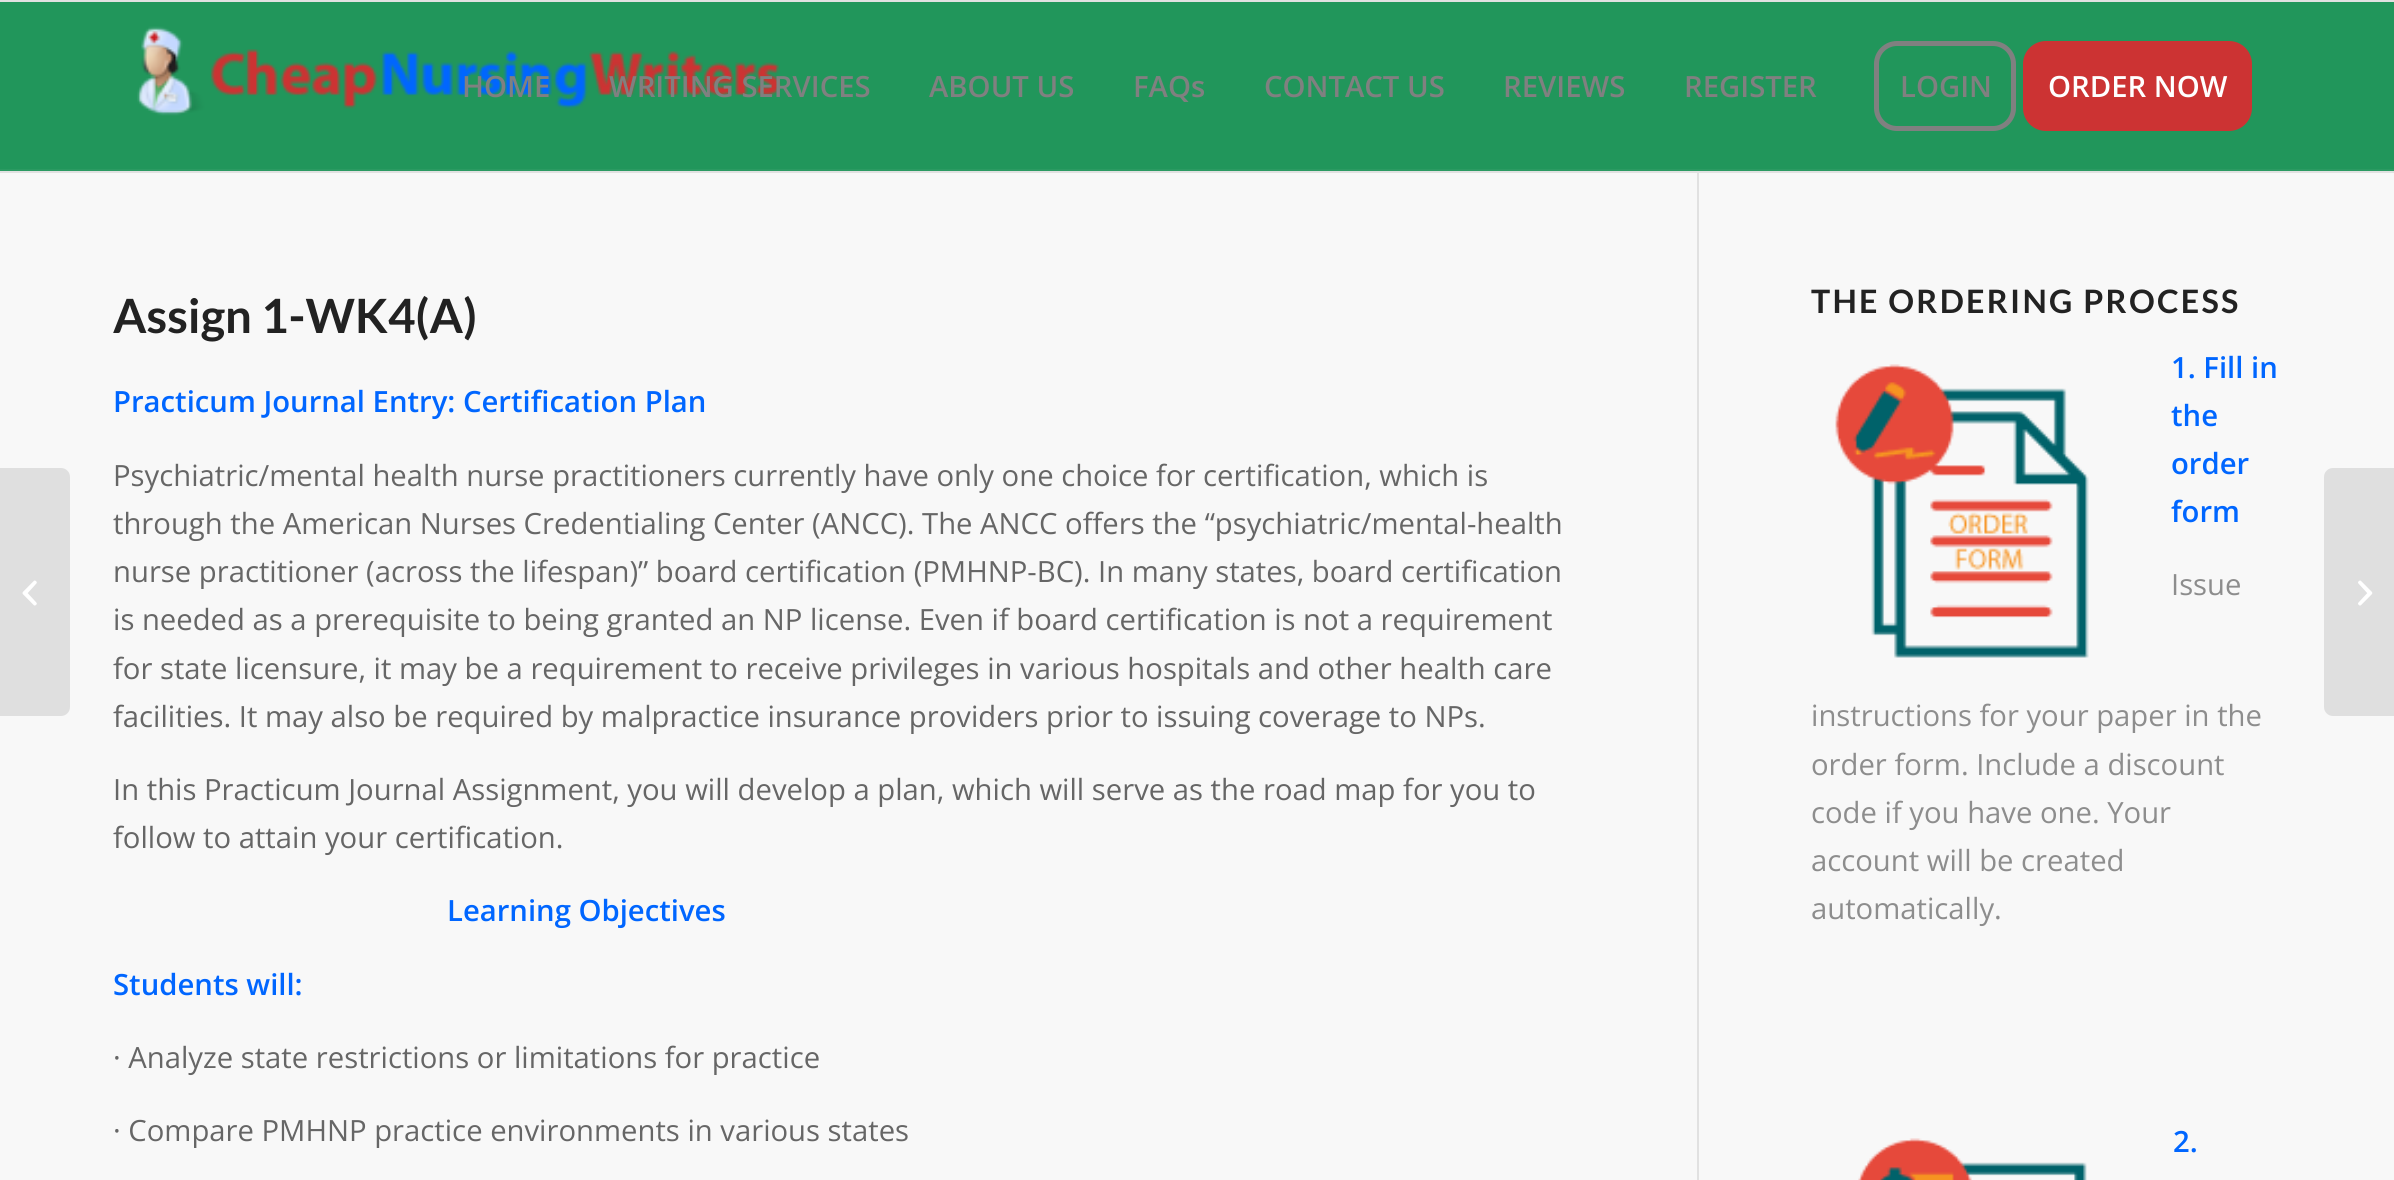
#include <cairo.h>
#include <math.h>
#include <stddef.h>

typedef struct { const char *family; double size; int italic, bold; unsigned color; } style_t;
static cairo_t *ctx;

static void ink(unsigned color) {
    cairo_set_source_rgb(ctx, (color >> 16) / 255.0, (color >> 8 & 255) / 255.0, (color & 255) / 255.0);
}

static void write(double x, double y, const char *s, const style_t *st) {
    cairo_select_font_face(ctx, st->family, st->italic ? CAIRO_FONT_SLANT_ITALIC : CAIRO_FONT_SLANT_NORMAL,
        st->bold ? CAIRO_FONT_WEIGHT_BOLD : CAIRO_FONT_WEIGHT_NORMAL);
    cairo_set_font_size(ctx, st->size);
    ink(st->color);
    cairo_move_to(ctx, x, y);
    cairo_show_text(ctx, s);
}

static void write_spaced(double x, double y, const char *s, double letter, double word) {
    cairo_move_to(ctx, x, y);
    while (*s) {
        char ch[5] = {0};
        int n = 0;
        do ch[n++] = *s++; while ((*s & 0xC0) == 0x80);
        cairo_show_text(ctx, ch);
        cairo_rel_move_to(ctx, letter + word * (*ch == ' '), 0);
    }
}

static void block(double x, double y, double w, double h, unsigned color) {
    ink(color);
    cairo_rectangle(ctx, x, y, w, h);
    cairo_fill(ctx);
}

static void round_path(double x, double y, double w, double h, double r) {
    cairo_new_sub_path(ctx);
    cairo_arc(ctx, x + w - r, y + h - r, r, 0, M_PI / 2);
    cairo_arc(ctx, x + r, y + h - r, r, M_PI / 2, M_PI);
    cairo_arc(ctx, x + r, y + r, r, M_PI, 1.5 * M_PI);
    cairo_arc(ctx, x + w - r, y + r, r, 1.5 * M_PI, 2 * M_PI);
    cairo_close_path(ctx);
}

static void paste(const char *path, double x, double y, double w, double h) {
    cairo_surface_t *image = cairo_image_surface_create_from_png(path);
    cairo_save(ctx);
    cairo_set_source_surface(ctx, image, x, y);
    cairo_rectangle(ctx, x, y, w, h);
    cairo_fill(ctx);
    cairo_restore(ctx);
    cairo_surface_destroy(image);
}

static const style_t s1 = {"Open Sans SemiBold", 29.25, 0, 0, 0x808080};
static const style_t s2 = {"Open Sans SemiBold", 29.25, 0, 0, 0xffffff};
static const style_t s3 = {"Lato", 47.25, 0, 1, 0x222222};
static const style_t s4 = {"Open Sans SemiBold", 29.25, 0, 0, 0x0066ff};
static const style_t s5 = {"Open Sans", 29.25, 0, 0, 0x666666};
static const style_t s6 = {"Open Sans", 29.25, 0, 0, 0x8d8d8d};

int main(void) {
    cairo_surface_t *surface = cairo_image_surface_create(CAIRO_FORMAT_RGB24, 2394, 1180);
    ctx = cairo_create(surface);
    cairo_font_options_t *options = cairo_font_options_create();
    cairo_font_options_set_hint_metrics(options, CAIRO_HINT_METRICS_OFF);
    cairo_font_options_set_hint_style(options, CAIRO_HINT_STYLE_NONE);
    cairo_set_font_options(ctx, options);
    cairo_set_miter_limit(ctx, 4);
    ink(0x21965b);
    cairo_paint(ctx);
    block(0, 0, 2394, 2, 0xe1e1e1);
    block(0, 173, 2394, 1007, 0xf8f8f8);
    block(1697, 171, 2, 1009, 0xe1e1e1);
    block(0, 171, 2394, 2, 0xe1e1e1);
    paste("pic1.png", 137, 26, 645, 90);
    write(462, 97, "HOME", &s1);
    write(609, 97, "WRITING SERVICES", &s1);
    write(929, 97, "ABOUT US", &s1);
    write(1133, 97, "FAQs", &s1);
    write(1264, 97, "CONTACT US", &s1);
    write(1503, 97, "REVIEWS", &s1);
    write(1684, 97, "REGISTER", &s1);
    round_path(1876.5, 43.5, 137, 85, 20.5);
    cairo_set_line_width(ctx, 5);
    cairo_stroke(ctx);
    write(1900, 97, "LOGIN", &s1);
    ink(0xcc3333);
    round_path(2025.5, 43.5, 224, 85, 20.5);
    cairo_fill_preserve(ctx);
    cairo_stroke(ctx);
    write(2048, 97, "ORDER NOW", &s2);
    ink(0xdfdfdf);
    cairo_new_path(ctx);
    cairo_move_to(ctx, 0, 468);
    cairo_line_to(ctx, 61, 468);
    cairo_curve_to(ctx, 66, 468, 70, 472, 70, 477);
    cairo_line_to(ctx, 70, 707);
    cairo_curve_to(ctx, 70, 712, 66, 716, 61, 716);
    cairo_line_to(ctx, 0, 716);
    cairo_close_path(ctx);
    cairo_fill(ctx);
    paste("pic2.png", 22, 580, 15, 26);
    block(0, 169, 2394, 2, 0x2b9a62);
    write(113, 333, "Assign 1-WK4(A)", &s3);
    write(113, 412, "Practicum Journal Entry: Certification Plan", &s4);
    write(113, 486, "Psychiatric/mental health nurse practitioners currently have only one choice for certification, which is", &s5);
    write(113, 534, "through the American Nurses Credentialing Center (ANCC). The ANCC offers the “psychiatric/mental-health", &s5);
    write(113, 582, "nurse practitioner (across the lifespan)” board certification (PMHNP-BC). In many states, board certification", &s5);
    write(113, 630, "is needed as a prerequisite to being granted an NP license. Even if board certification is not a requirement", &s5);
    write(113, 679, "for state licensure, it may be a requirement to receive privileges in various hospitals and other health care", &s5);
    write(113, 727, "facilities. It may also be required by malpractice insurance providers prior to issuing coverage to NPs.", &s5);
    write(113, 800, "In this Practicum Journal Assignment, you will develop a plan, which will serve as the road map for you to", &s5);
    write(113, 848, "follow to attain your certification.", &s5);
    write(447, 921, "Learning Objectives", &s4);
    write(113, 995, "Students will:", &s4);
    write(113, 1068, "· Analyze state restrictions or limitations for practice", &s5);
    write(113, 1141, "· Compare PMHNP practice environments in various states", &s5);
    cairo_select_font_face(ctx, "Lato", CAIRO_FONT_SLANT_NORMAL, CAIRO_FONT_WEIGHT_BOLD);
    cairo_set_font_size(ctx, 32.25);
    ink(0x222222);
    write_spaced(1811, 313, "THE ORDERING PROCESS", 2.25, 0);
    paste("pic3.png", 1835, 364, 254, 294);
    write(2171, 378, "1. Fill in", &s4);
    write(2171, 426, "the", &s4);
    write(2171, 474, "order", &s4);
    write(2171, 522, "form", &s4);
    write(2171, 595, "Issue", &s6);
    write(1811, 726, "instructions for your paper in the", &s6);
    write(1811, 775, "order form. Include a discount", &s6);
    write(1811, 823, "code if you have one. Your", &s6);
    write(1811, 871, "account will be created", &s6);
    write(1811, 919, "automatically.", &s6);
    paste("pic4.png", 1858, 1138, 229, 42);
    write(2173, 1152, "2.", &s4);
    ink(0xdfdfdf);
    cairo_new_path(ctx);
    cairo_move_to(ctx, 2333, 468);
    cairo_line_to(ctx, 2394, 468);
    cairo_line_to(ctx, 2394, 716);
    cairo_line_to(ctx, 2333, 716);
    cairo_curve_to(ctx, 2328, 716, 2324, 712, 2324, 707);
    cairo_line_to(ctx, 2324, 477);
    cairo_curve_to(ctx, 2324, 472, 2328, 468, 2333, 468);
    cairo_close_path(ctx);
    cairo_fill(ctx);
    paste("pic5.png", 2358, 580, 15, 26);
    cairo_surface_write_to_png(surface, "screenshot.png");
    cairo_font_options_destroy(options);
    cairo_destroy(ctx);
    cairo_surface_destroy(surface);
    return 0;
}
